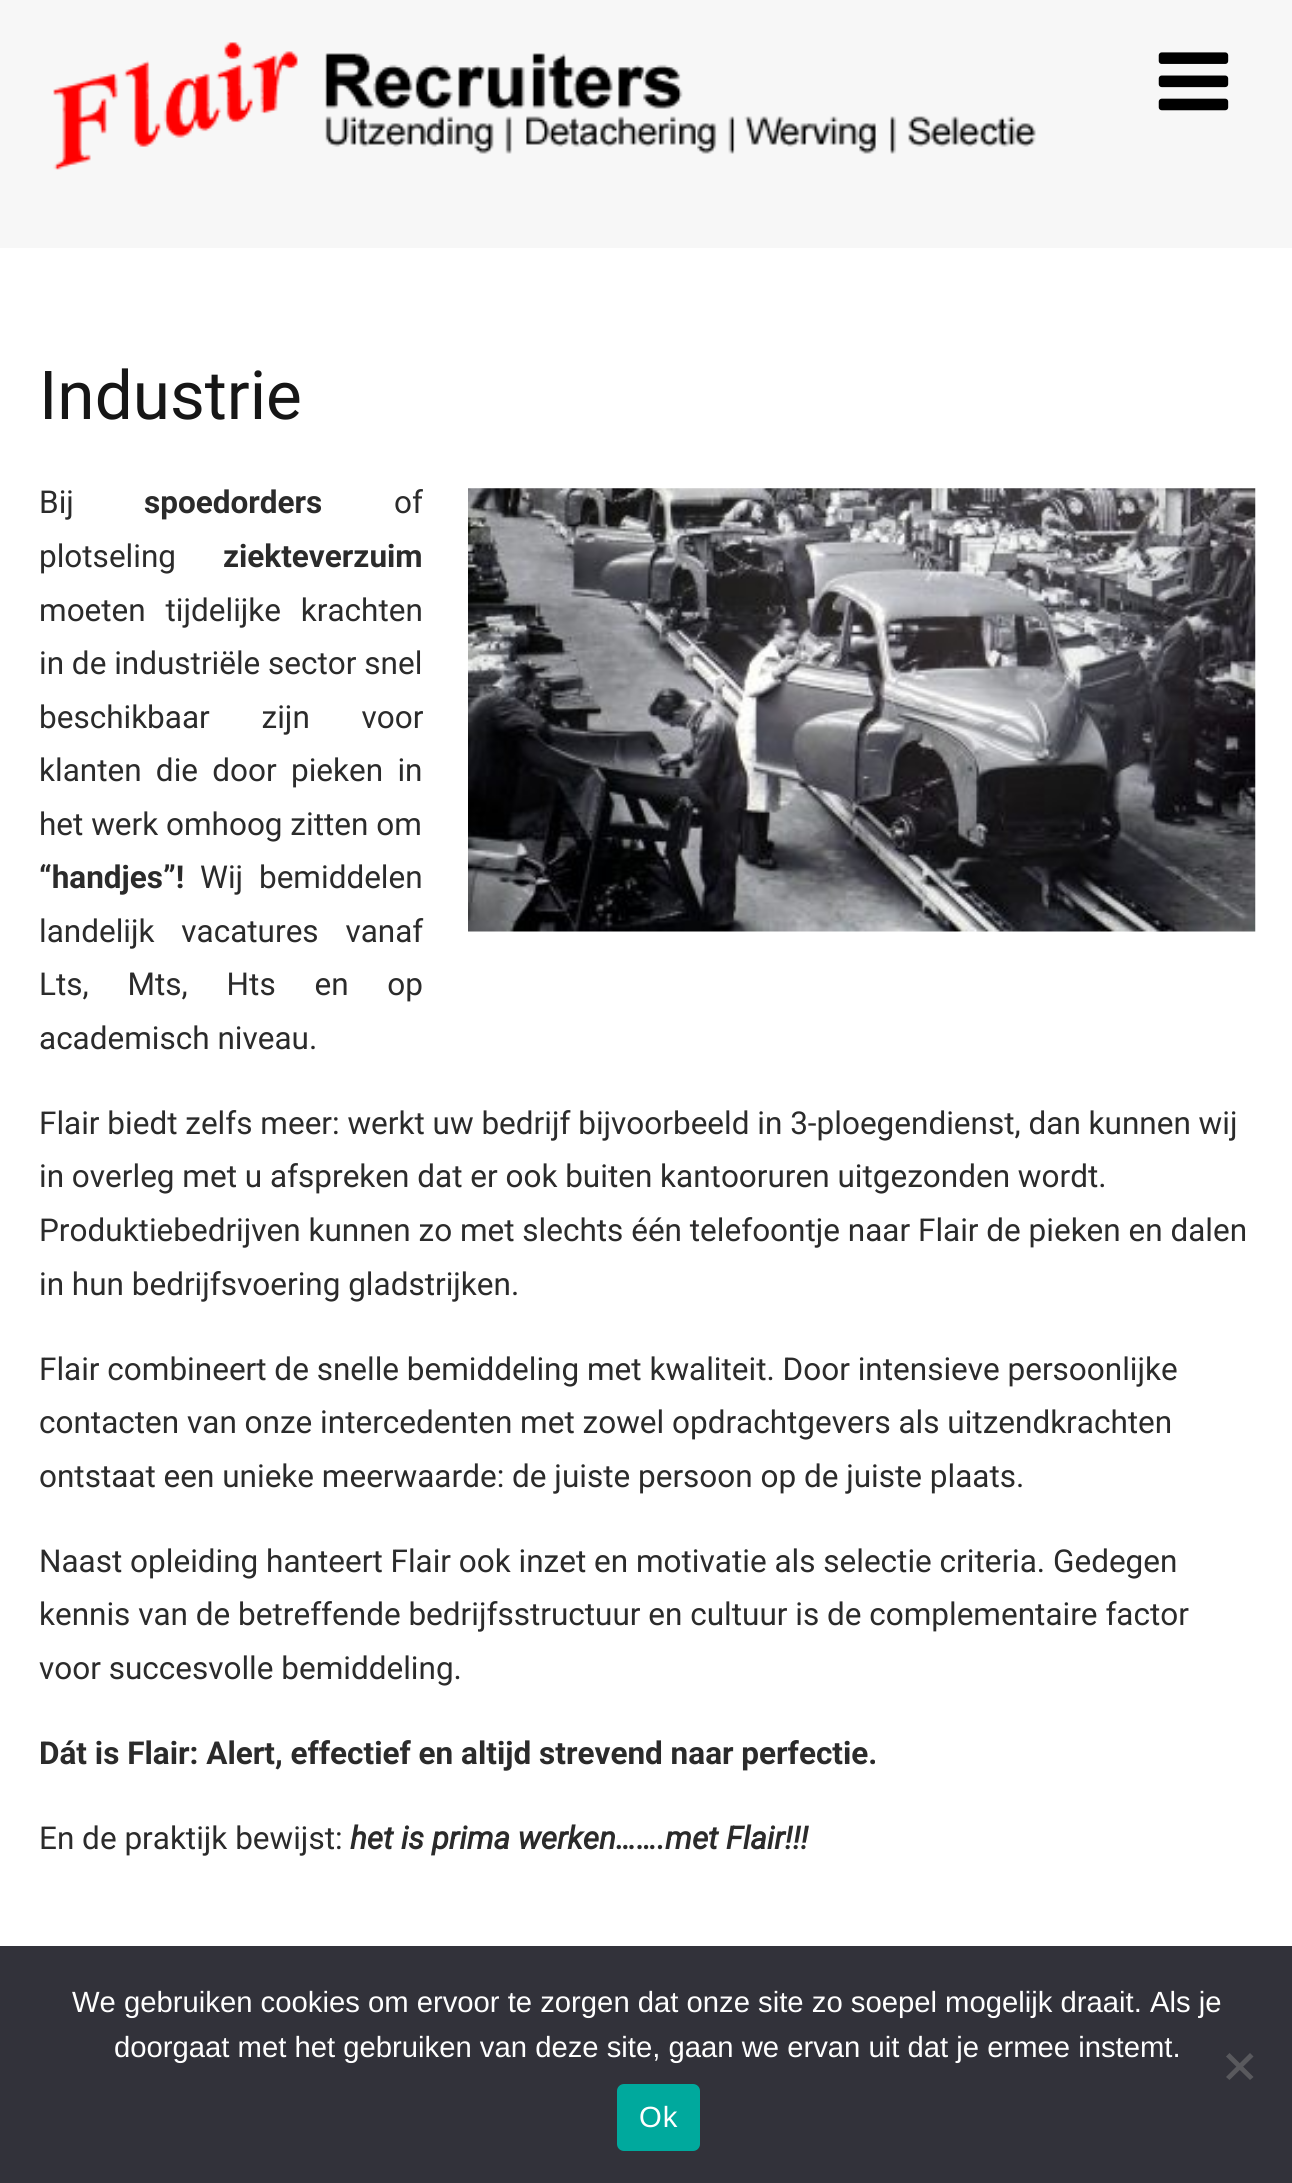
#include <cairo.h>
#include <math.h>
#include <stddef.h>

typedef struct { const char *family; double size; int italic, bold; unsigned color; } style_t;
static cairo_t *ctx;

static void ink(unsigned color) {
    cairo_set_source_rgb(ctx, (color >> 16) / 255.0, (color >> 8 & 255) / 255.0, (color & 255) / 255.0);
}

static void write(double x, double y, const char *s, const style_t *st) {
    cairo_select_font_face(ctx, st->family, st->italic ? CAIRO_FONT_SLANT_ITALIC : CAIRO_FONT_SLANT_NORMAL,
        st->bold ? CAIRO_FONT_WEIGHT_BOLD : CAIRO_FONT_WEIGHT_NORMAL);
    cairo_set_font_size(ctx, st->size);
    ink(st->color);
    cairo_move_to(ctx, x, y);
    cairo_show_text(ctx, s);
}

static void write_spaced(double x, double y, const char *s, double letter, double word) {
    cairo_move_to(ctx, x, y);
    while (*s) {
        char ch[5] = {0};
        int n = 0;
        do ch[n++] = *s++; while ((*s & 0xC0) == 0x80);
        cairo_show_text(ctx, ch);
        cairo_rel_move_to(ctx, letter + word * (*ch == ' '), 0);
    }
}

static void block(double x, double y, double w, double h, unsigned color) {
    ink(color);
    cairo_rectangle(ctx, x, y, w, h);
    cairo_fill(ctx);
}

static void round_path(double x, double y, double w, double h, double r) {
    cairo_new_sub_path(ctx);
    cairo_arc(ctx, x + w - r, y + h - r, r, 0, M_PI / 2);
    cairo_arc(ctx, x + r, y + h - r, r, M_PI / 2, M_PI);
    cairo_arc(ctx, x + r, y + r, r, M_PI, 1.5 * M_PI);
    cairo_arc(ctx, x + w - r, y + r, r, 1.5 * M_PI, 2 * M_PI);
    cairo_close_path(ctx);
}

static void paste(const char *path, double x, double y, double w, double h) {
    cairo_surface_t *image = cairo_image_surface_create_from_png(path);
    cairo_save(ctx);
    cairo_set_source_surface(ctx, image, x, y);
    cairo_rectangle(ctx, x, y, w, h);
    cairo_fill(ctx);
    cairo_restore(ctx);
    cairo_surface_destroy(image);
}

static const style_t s1 = {"Roboto", 67.5, 0, 0, 0x161616};
static const style_t s2 = {"Roboto", 31.5, 0, 0, 0x2b2b2b};
static const style_t s3 = {"Roboto", 31.5, 0, 1, 0x2b2b2b};
static const style_t s4 = {"Roboto", 31.5, 1, 1, 0x2b2b2b};
static const style_t s5 = {"Liberation Sans", 29.25, 0, 0, 0xffffff};

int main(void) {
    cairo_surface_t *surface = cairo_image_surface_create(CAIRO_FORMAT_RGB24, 1292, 2183);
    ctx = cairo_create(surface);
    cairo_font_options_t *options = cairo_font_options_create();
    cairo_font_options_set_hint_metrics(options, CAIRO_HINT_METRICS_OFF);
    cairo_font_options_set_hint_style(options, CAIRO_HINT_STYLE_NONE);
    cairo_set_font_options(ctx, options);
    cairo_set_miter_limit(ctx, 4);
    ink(0xffffff);
    cairo_paint(ctx);
    block(0, 0, 1292, 248, 0xf7f7f7);
    paste("pic1.png", 53, 42, 983, 128);
    paste("pic2.png", 1158, 52, 71, 59);
    write(39, 419, "Industrie", &s1);
    write(39, 513, "Bij", &s2);
    write(144, 513, "spoedorders", &s3);
    write(394, 513, "of", &s2);
    paste("pic3.png", 468, 488, 788, 444);
    write(39, 567, "plotseling", &s2);
    write(223, 567, "ziekteverzuim", &s3);
    cairo_select_font_face(ctx, "Roboto", CAIRO_FONT_SLANT_NORMAL, CAIRO_FONT_WEIGHT_NORMAL);
    write_spaced(39, 621, "moeten tijdelijke krachten", 0, 12);
    write(39, 674, "in de industriële sector snel", &s2);
    write_spaced(39, 728, "beschikbaar zijn voor", 0, 44);
    write_spaced(39, 781, "klanten die door pieken in", 0, 6.5);
    write(39, 835, "het werk omhoog zitten om", &s2);
    write(39, 888, "“handjes”!", &s3);
    cairo_select_font_face(ctx, "Roboto", CAIRO_FONT_SLANT_NORMAL, CAIRO_FONT_WEIGHT_NORMAL);
    write_spaced(200, 888, "Wij bemiddelen", 0, 8);
    write_spaced(39, 942, "landelijk vacatures vanaf", 0, 19);
    write_spaced(39, 995, "Lts, Mts, Hts en op", 0, 31);
    write(39, 1049, "academisch niveau.", &s2);
    write(39, 1134, "Flair biedt zelfs meer: werkt uw bedrijf bijvoorbeeld in 3-ploegendienst, dan kunnen wij", &s2);
    write(39, 1187, "in overleg met u afspreken dat er ook buiten kantooruren uitgezonden wordt.", &s2);
    write(39, 1241, "Produktiebedrijven kunnen zo met slechts één telefoontje naar Flair de pieken en dalen", &s2);
    write(39, 1295, "in hun bedrijfsvoering gladstrijken.", &s2);
    write(39, 1380, "Flair combineert de snelle bemiddeling met kwaliteit. Door intensieve persoonlijke", &s2);
    write(39, 1433, "contacten van onze intercedenten met zowel opdrachtgevers als uitzendkrachten", &s2);
    write(39, 1487, "ontstaat een unieke meerwaarde: de juiste persoon op de juiste plaats.", &s2);
    write(39, 1572, "Naast opleiding hanteert Flair ook inzet en motivatie als selectie criteria. Gedegen", &s2);
    write(39, 1625, "kennis van de betreffende bedrijfsstructuur en cultuur is de complementaire factor", &s2);
    write(39, 1679, "voor succesvolle bemiddeling.", &s2);
    write(39, 1764, "Dát is Flair: Alert, effectief en altijd strevend naar perfectie.", &s3);
    write(39, 1849, "En de praktijk bewijst:", &s2);
    write(350, 1849, "het is prima werken…….met Flair!!!", &s4);
    block(0, 1946, 1292, 237, 0x32323a);
    write(72, 2012, "We gebruiken cookies om ervoor te zorgen dat onze site zo soepel mogelijk draait. Als je", &s5);
    write(114, 2057, "doorgaat met het gebruiken van deze site, gaan we ervan uit dat je ermee instemt.", &s5);
    ink(0x59595d);
    cairo_new_path(ctx);
    cairo_move_to(ctx, 1250, 2053);
    cairo_line_to(ctx, 1253.5, 2056.5);
    cairo_line_to(ctx, 1229.5, 2080);
    cairo_line_to(ctx, 1226, 2077);
    cairo_close_path(ctx);
    cairo_fill(ctx);
    cairo_new_path(ctx);
    cairo_move_to(ctx, 1226, 2056.5);
    cairo_line_to(ctx, 1229.5, 2053);
    cairo_line_to(ctx, 1253.5, 2077);
    cairo_line_to(ctx, 1250, 2080);
    cairo_close_path(ctx);
    cairo_fill(ctx);
    ink(0x00a99d);
    round_path(617, 2084, 83, 67, 7);
    cairo_fill(ctx);
    ink(0xffffff);
    write_spaced(639, 2127, "Ok", 1, 0);
    cairo_surface_write_to_png(surface, "screenshot.png");
    cairo_font_options_destroy(options);
    cairo_destroy(ctx);
    cairo_surface_destroy(surface);
    return 0;
}
